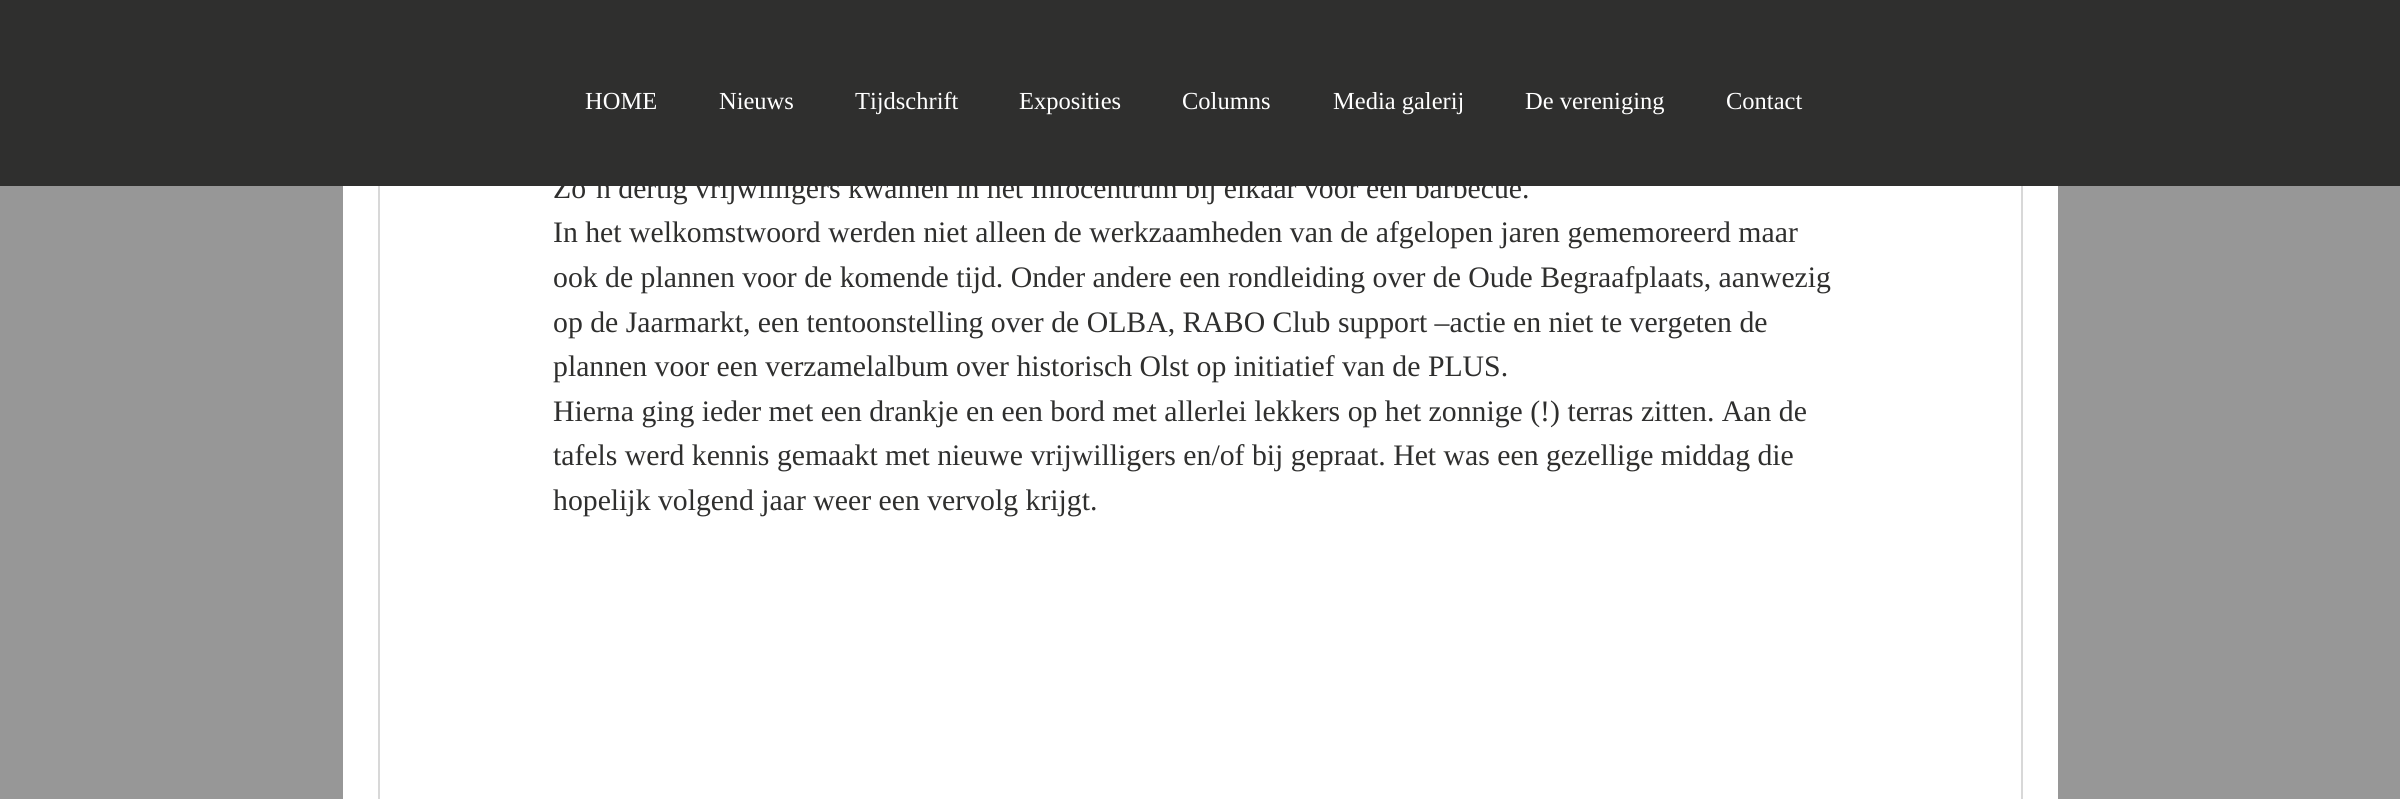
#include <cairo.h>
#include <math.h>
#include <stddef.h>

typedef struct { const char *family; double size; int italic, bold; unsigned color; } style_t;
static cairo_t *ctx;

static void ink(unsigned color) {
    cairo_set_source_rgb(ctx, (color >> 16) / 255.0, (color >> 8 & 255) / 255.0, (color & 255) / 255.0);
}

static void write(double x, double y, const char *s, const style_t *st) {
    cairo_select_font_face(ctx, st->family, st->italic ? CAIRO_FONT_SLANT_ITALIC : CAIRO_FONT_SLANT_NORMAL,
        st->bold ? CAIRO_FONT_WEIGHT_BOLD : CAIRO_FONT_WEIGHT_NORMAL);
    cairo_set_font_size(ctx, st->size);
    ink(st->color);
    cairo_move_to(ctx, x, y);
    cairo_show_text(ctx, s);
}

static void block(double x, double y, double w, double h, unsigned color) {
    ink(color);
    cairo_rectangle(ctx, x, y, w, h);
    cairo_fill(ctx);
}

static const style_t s1 = {"Liberation Serif", 24.5, 0, 0, 0xffffff};
static const style_t s2 = {"Liberation Serif", 29.75, 0, 0, 0x2f2f2e};

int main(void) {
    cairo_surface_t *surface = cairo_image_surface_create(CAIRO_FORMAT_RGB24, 2400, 799);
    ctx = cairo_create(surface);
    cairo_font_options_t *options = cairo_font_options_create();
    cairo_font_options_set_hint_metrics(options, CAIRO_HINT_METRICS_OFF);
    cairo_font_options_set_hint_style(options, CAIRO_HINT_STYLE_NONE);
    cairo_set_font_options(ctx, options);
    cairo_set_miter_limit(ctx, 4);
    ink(0x979797);
    cairo_paint(ctx);
    block(343, 186, 1715, 613, 0xffffff);
    cairo_rectangle(ctx, 379, -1, 1643, 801);
    ink(0xd8d8d8);
    cairo_stroke(ctx);
    block(0, 0, 2400, 186, 0x2f2f2e);
    write(585, 109, "HOME", &s1);
    write(719, 109, "Nieuws", &s1);
    write(855, 109, "Tijdschrift", &s1);
    write(1019, 109, "Exposities", &s1);
    write(1182, 109, "Columns", &s1);
    write(1333, 109, "Media galerij", &s1);
    write(1525, 109, "De vereniging", &s1);
    write(1726, 109, "Contact", &s1);
    write(553, 198, "Zo’n dertig vrijwilligers kwamen in het Infocentrum bij elkaar voor een barbecue.", &s2);
    write(553, 242, "In het welkomstwoord werden niet alleen de werkzaamheden van de afgelopen jaren gememoreerd maar", &s2);
    write(553, 287, "ook de plannen voor de komende tijd. Onder andere een rondleiding over de Oude Begraafplaats, aanwezig", &s2);
    write(553, 332, "op de Jaarmarkt, een tentoonstelling over de OLBA, RABO Club support –actie en niet te vergeten de", &s2);
    write(553, 376, "plannen voor een verzamelalbum over historisch Olst op initiatief van de PLUS.", &s2);
    write(553, 421, "Hierna ging ieder met een drankje en een bord met allerlei lekkers op het zonnige (!) terras zitten. Aan de", &s2);
    write(553, 465, "tafels werd kennis gemaakt met nieuwe vrijwilligers en/of bij gepraat. Het was een gezellige middag die", &s2);
    write(553, 510, "hopelijk volgend jaar weer een vervolg krijgt.", &s2);
    cairo_surface_write_to_png(surface, "screenshot.png");
    cairo_font_options_destroy(options);
    cairo_destroy(ctx);
    cairo_surface_destroy(surface);
    return 0;
}
